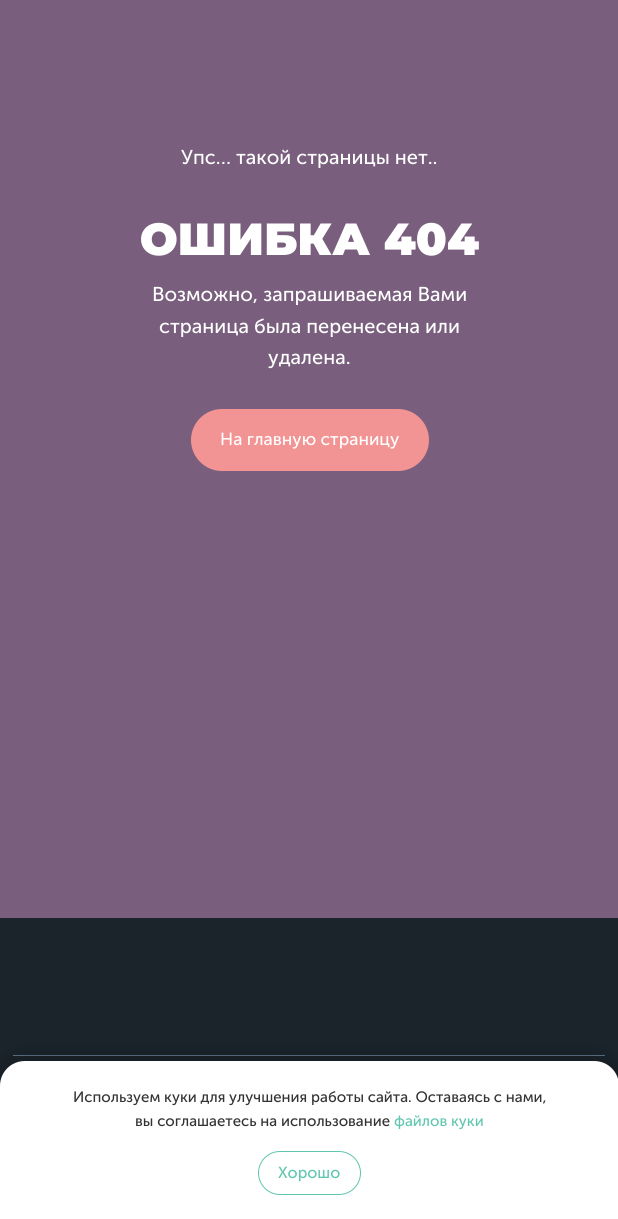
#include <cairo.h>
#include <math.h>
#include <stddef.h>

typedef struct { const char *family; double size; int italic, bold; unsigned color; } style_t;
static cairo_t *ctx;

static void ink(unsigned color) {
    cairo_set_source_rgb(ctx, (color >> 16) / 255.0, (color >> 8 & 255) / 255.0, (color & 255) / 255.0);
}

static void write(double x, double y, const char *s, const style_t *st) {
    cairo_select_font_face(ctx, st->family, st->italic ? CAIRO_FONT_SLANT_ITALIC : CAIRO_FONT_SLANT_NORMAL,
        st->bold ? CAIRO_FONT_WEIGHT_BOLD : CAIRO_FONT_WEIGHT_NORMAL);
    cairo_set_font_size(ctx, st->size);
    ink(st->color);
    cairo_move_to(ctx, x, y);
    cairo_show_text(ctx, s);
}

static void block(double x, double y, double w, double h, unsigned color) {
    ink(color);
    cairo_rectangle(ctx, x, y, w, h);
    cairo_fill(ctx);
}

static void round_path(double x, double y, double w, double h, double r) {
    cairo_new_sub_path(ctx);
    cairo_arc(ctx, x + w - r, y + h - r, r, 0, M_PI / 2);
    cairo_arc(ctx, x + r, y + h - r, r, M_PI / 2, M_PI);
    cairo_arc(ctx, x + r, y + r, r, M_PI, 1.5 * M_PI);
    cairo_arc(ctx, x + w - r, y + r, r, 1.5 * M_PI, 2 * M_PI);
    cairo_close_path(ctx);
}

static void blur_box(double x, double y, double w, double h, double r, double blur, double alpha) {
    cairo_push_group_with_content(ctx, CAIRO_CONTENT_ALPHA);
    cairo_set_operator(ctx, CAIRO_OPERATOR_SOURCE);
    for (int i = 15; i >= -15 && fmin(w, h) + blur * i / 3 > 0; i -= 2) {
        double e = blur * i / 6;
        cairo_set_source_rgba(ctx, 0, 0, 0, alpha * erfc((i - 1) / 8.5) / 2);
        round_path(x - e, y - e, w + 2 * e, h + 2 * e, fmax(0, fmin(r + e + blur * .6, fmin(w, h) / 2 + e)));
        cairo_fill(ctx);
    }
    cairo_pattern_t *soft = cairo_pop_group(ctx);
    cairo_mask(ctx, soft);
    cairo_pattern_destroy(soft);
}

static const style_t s1 = {"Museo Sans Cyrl", 20, 0, 0, 0xffffff};
static const style_t s2 = {"Montserrat Black", 45, 0, 0, 0xffffff};
static const style_t s3 = {"Museo Sans Cyrl", 17.5, 0, 0, 0xffffff};
static const style_t s4 = {"Museo Sans Cyrl", 15, 0, 0, 0x333333};
static const style_t s5 = {"Museo Sans Cyrl", 15, 0, 0, 0x60c6af};
static const style_t s6 = {"Museo Sans Cyrl", 16, 0, 0, 0x60c6af};

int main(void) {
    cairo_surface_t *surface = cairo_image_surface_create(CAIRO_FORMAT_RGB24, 618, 1219);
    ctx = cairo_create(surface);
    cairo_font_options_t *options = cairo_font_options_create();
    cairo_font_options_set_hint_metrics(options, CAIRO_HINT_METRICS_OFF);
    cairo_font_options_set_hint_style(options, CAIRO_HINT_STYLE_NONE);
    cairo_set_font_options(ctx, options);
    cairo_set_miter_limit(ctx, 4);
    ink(0x1b242b);
    cairo_paint(ctx);
    block(0, 0, 618, 918, 0x795f7d);
    write(181, 164, "Упс… такой страницы нет..", &s1);
    write(140, 255, "ОШИБКА 404", &s2);
    write(152, 301, "Возможно, запрашиваемая Вами", &s1);
    write(159, 333, "страница была перенесена или", &s1);
    write(268, 364, "удалена.", &s1);
    ink(0xf29494);
    round_path(191, 409, 238, 62, 31);
    cairo_fill(ctx);
    write(220, 445, "На главную страницу", &s3);
    block(13, 1055, 592, 1, 0x5a7387);
    ink(0x000000);
    blur_box(0, 1061, 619, 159, 25, 12.5, 0.3);
    ink(0xffffff);
    cairo_new_path(ctx);
    cairo_move_to(ctx, 25, 1061);
    cairo_line_to(ctx, 594, 1061);
    cairo_curve_to(ctx, 608, 1061, 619, 1072, 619, 1086);
    cairo_line_to(ctx, 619, 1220);
    cairo_line_to(ctx, 0, 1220);
    cairo_line_to(ctx, 0, 1086);
    cairo_curve_to(ctx, 0, 1072, 11, 1061, 25, 1061);
    cairo_close_path(ctx);
    cairo_fill(ctx);
    write(73, 1102, "Используем куки для улучшения работы сайта. Оставаясь с нами,", &s4);
    write(135, 1126, "вы соглашаетесь на использование", &s4);
    write(394, 1126, "файлов куки", &s5);
    round_path(258.5, 1151.5, 102, 43, 21.5);
    cairo_set_line_width(ctx, 1);
    cairo_stroke(ctx);
    write(278, 1178, "Хорошо", &s6);
    cairo_surface_write_to_png(surface, "screenshot.png");
    cairo_font_options_destroy(options);
    cairo_destroy(ctx);
    cairo_surface_destroy(surface);
    return 0;
}
